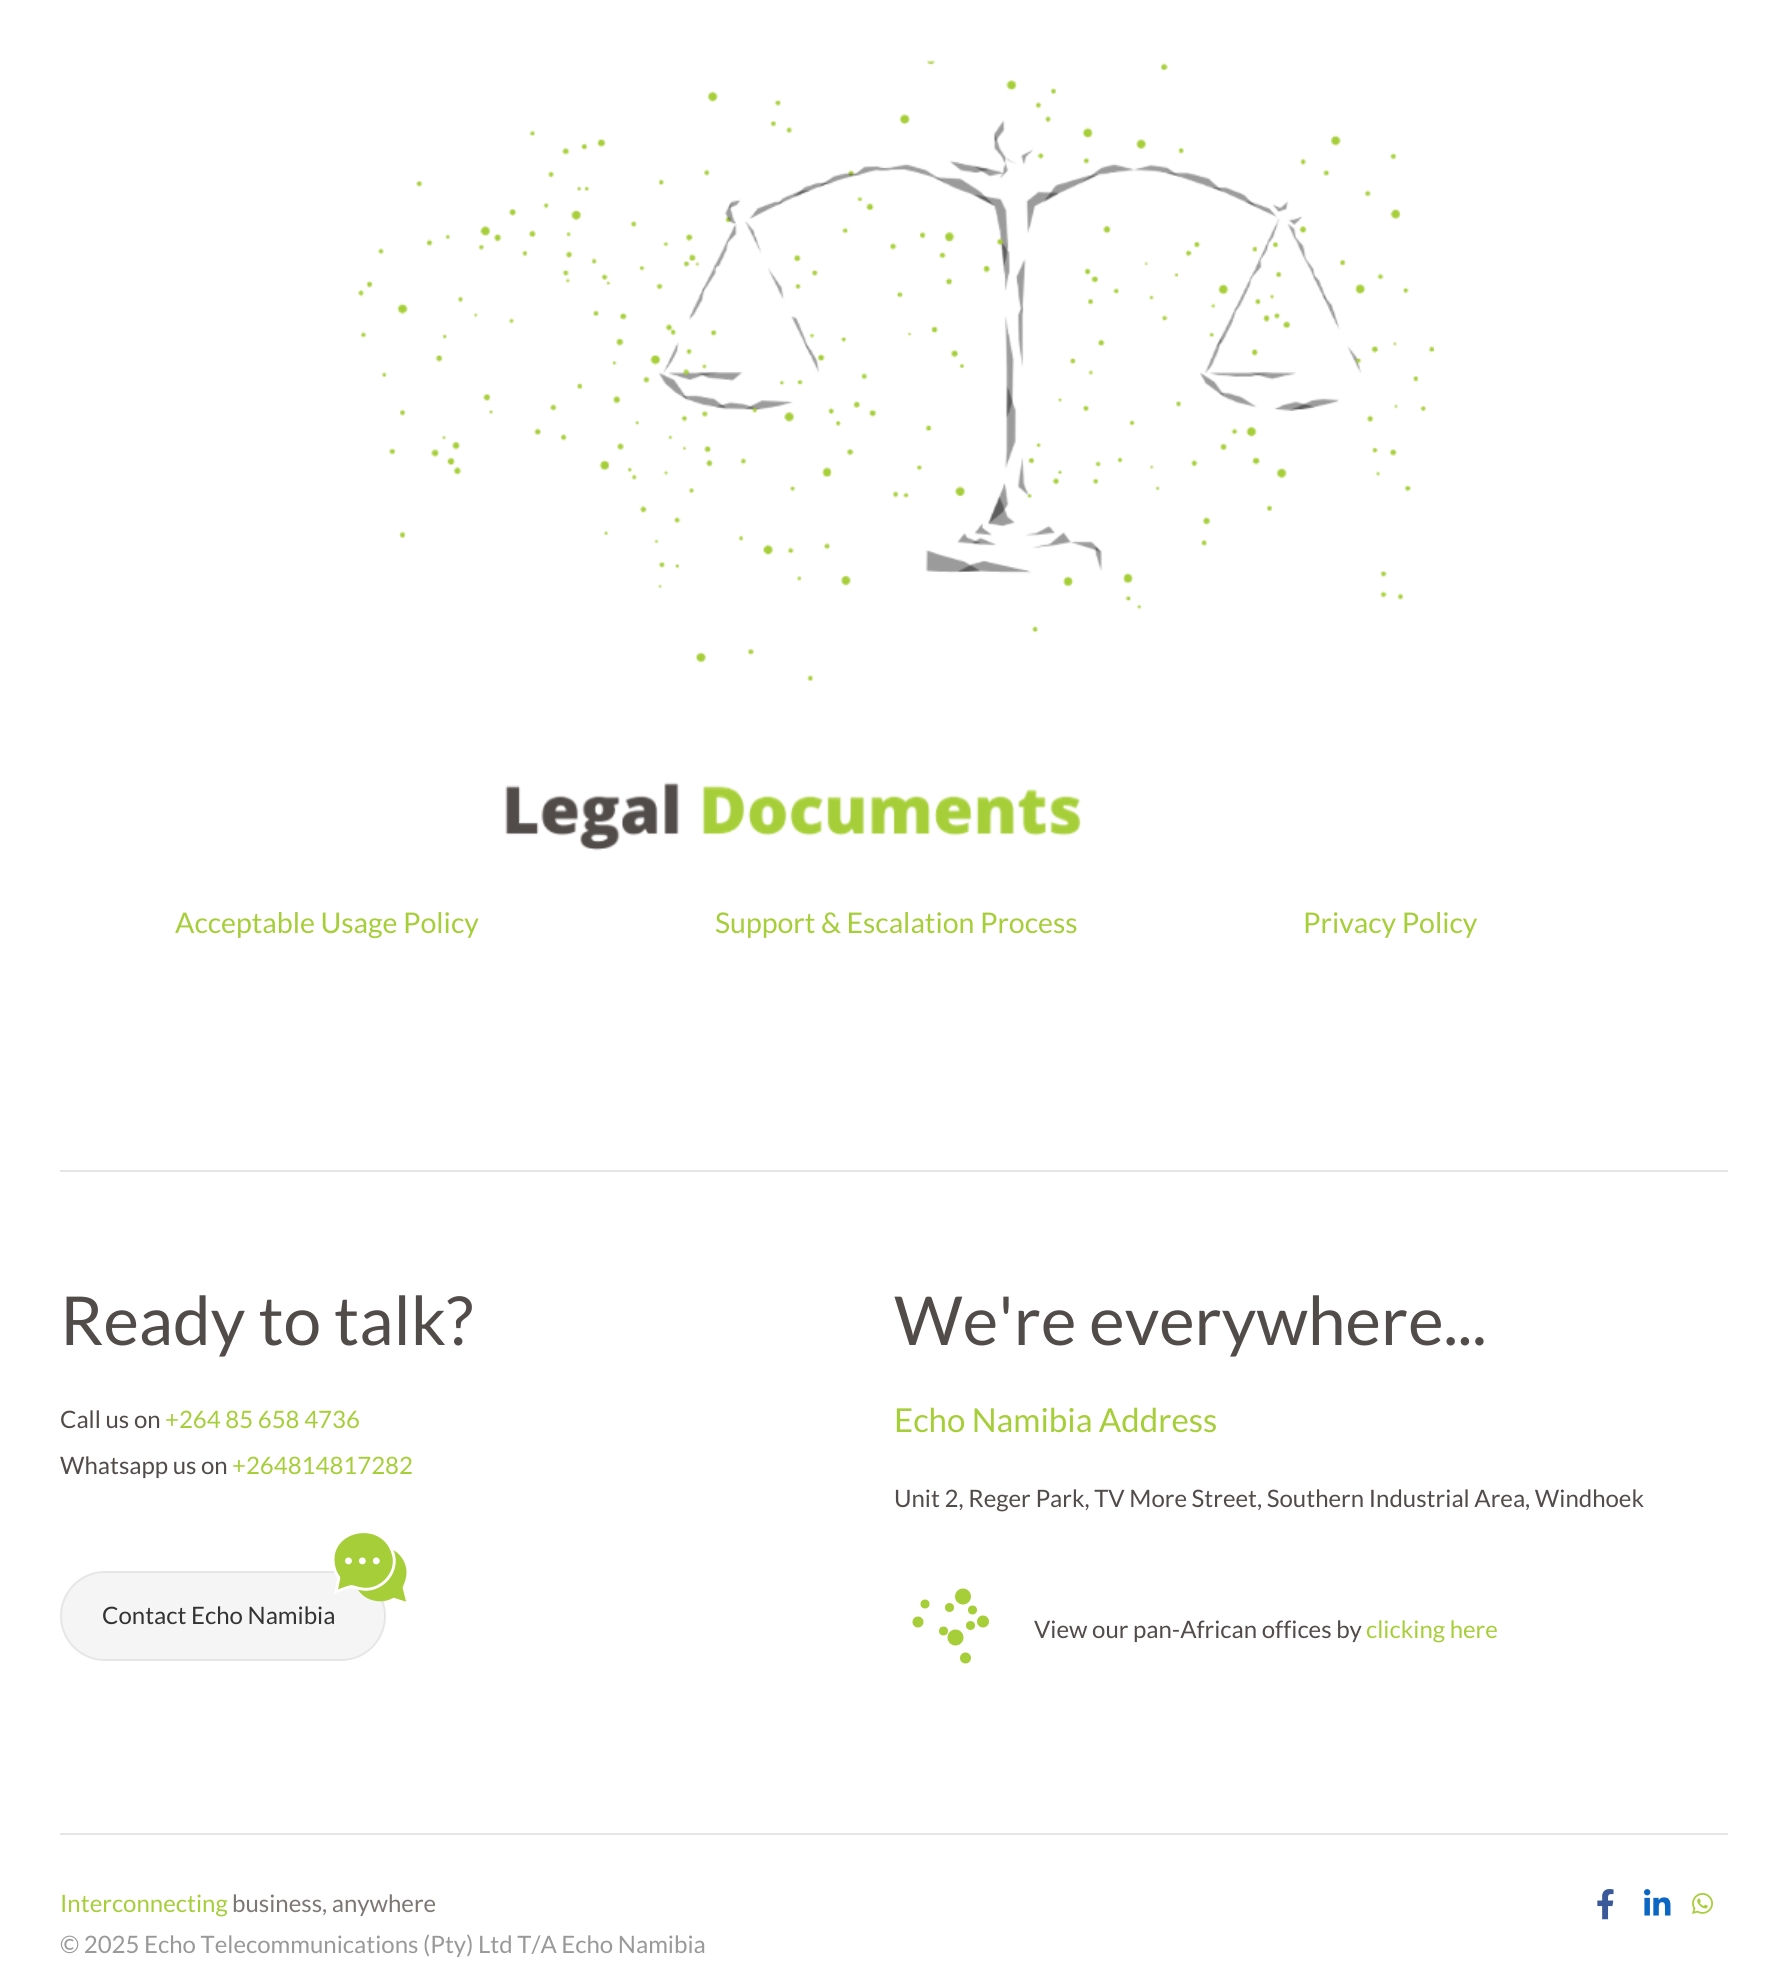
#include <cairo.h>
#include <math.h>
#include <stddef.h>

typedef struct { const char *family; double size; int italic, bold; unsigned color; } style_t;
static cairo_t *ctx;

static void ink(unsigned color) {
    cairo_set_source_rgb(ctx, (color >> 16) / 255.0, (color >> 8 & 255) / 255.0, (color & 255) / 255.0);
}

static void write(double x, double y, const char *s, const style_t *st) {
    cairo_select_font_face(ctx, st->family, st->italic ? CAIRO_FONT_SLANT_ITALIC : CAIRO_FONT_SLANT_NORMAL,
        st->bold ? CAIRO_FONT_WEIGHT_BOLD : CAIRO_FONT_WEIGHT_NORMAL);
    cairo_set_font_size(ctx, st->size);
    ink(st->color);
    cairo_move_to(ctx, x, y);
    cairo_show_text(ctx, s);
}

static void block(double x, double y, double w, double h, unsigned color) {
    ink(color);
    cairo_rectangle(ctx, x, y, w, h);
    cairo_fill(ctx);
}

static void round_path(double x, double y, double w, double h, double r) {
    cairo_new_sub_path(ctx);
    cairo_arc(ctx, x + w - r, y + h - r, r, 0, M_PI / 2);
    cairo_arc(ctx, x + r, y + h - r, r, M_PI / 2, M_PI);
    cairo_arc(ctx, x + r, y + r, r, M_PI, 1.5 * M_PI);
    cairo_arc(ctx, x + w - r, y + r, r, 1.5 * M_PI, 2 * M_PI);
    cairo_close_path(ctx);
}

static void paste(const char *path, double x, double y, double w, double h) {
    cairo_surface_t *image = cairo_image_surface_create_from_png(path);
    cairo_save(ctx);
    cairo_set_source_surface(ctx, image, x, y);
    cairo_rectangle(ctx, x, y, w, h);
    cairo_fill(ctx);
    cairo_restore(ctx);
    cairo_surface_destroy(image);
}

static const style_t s1 = {"Lato", 28.5, 0, 0, 0xa6ce39};
static const style_t s2 = {"Lato", 67.5, 0, 0, 0x514b49};
static const style_t s3 = {"Lato", 24, 0, 0, 0x514b49};
static const style_t s4 = {"Lato", 24, 0, 0, 0xa6ce39};
static const style_t s5 = {"Lato", 24, 0, 0, 0x333333};
static const style_t s6 = {"Lato", 33, 0, 0, 0xa6ce39};
static const style_t s7 = {"Lato", 24, 0, 0, 0x7d7774};
static const style_t s8 = {"Lato", 24, 0, 0, 0x999999};

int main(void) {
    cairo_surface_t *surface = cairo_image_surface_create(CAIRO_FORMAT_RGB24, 1787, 1971);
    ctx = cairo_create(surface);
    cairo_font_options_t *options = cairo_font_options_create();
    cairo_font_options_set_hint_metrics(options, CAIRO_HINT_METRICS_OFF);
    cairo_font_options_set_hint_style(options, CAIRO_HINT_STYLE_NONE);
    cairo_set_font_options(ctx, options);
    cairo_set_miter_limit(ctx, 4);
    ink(0xffffff);
    cairo_paint(ctx);
    paste("pic1.png", 358, 60, 1076, 621);
    paste("pic2.png", 505, 782, 576, 69);
    write(175, 933, "Acceptable Usage Policy", &s1);
    write(715, 933, "Support & Escalation Process", &s1);
    write(1303, 933, "Privacy Policy", &s1);
    block(60, 1170, 1668, 2, 0xe5e5e5);
    write(60, 1345, "Ready to talk?", &s2);
    write(60, 1428, "Call us on", &s3);
    write(165, 1428, "+264 85 658 4736", &s4);
    write(60, 1474, "Whatsapp us on", &s3);
    write(232, 1474, "+264814817282", &s4);
    ink(0xf5f5f5);
    round_path(61, 1572, 324, 88, 44);
    cairo_fill_preserve(ctx);
    ink(0xe6e6e6);
    cairo_stroke(ctx);
    paste("pic3.png", 333, 1533, 74, 69);
    write(102, 1624, "Contact Echo Namibia", &s5);
    write(894, 1345, "We're everywhere...", &s2);
    write(894, 1432, "Echo Namibia Address", &s6);
    write(894, 1507, "Unit 2, Reger Park, TV More Street, Southern Industrial Area, Windhoek", &s3);
    ink(0xa6ce39);
    cairo_new_path(ctx);
    cairo_arc(ctx, 925, 1604, 4.5, 0, 2 * M_PI);
    cairo_fill(ctx);
    cairo_arc(ctx, 949.5, 1607.5, 4.5, 0, 2 * M_PI);
    cairo_fill(ctx);
    cairo_arc(ctx, 963, 1596.5, 8, 0, 2 * M_PI);
    cairo_fill(ctx);
    cairo_arc(ctx, 972.5, 1610, 4.5, 0, 2 * M_PI);
    cairo_fill(ctx);
    cairo_arc(ctx, 918, 1622, 5.5, 0, 2 * M_PI);
    cairo_fill(ctx);
    cairo_arc(ctx, 955.5, 1637.5, 8, 0, 2 * M_PI);
    cairo_fill(ctx);
    cairo_arc(ctx, 943.5, 1631, 4.5, 0, 2 * M_PI);
    cairo_fill(ctx);
    cairo_arc(ctx, 970.5, 1625.5, 4.5, 0, 2 * M_PI);
    cairo_fill(ctx);
    cairo_arc(ctx, 983, 1621.5, 6, 0, 2 * M_PI);
    cairo_fill(ctx);
    cairo_arc(ctx, 965.5, 1658, 5.5, 0, 2 * M_PI);
    cairo_fill(ctx);
    write(1034, 1638, "View our pan-African offices by", &s3);
    write(1366, 1638, "clicking here", &s4);
    block(60, 1833, 1668, 2, 0xe5e5e5);
    write(60, 1912, "Interconnecting", &s4);
    write(232, 1912, "business, anywhere", &s7);
    paste("pic4.png", 1597, 1889, 17, 31);
    paste("pic5.png", 1644, 1889, 27, 27);
    paste("pic6.png", 1692, 1893, 21, 21);
    write(60, 1953, "© 2025 Echo Telecommunications (Pty) Ltd T/A Echo Namibia", &s8);
    cairo_surface_write_to_png(surface, "screenshot.png");
    cairo_font_options_destroy(options);
    cairo_destroy(ctx);
    cairo_surface_destroy(surface);
    return 0;
}
